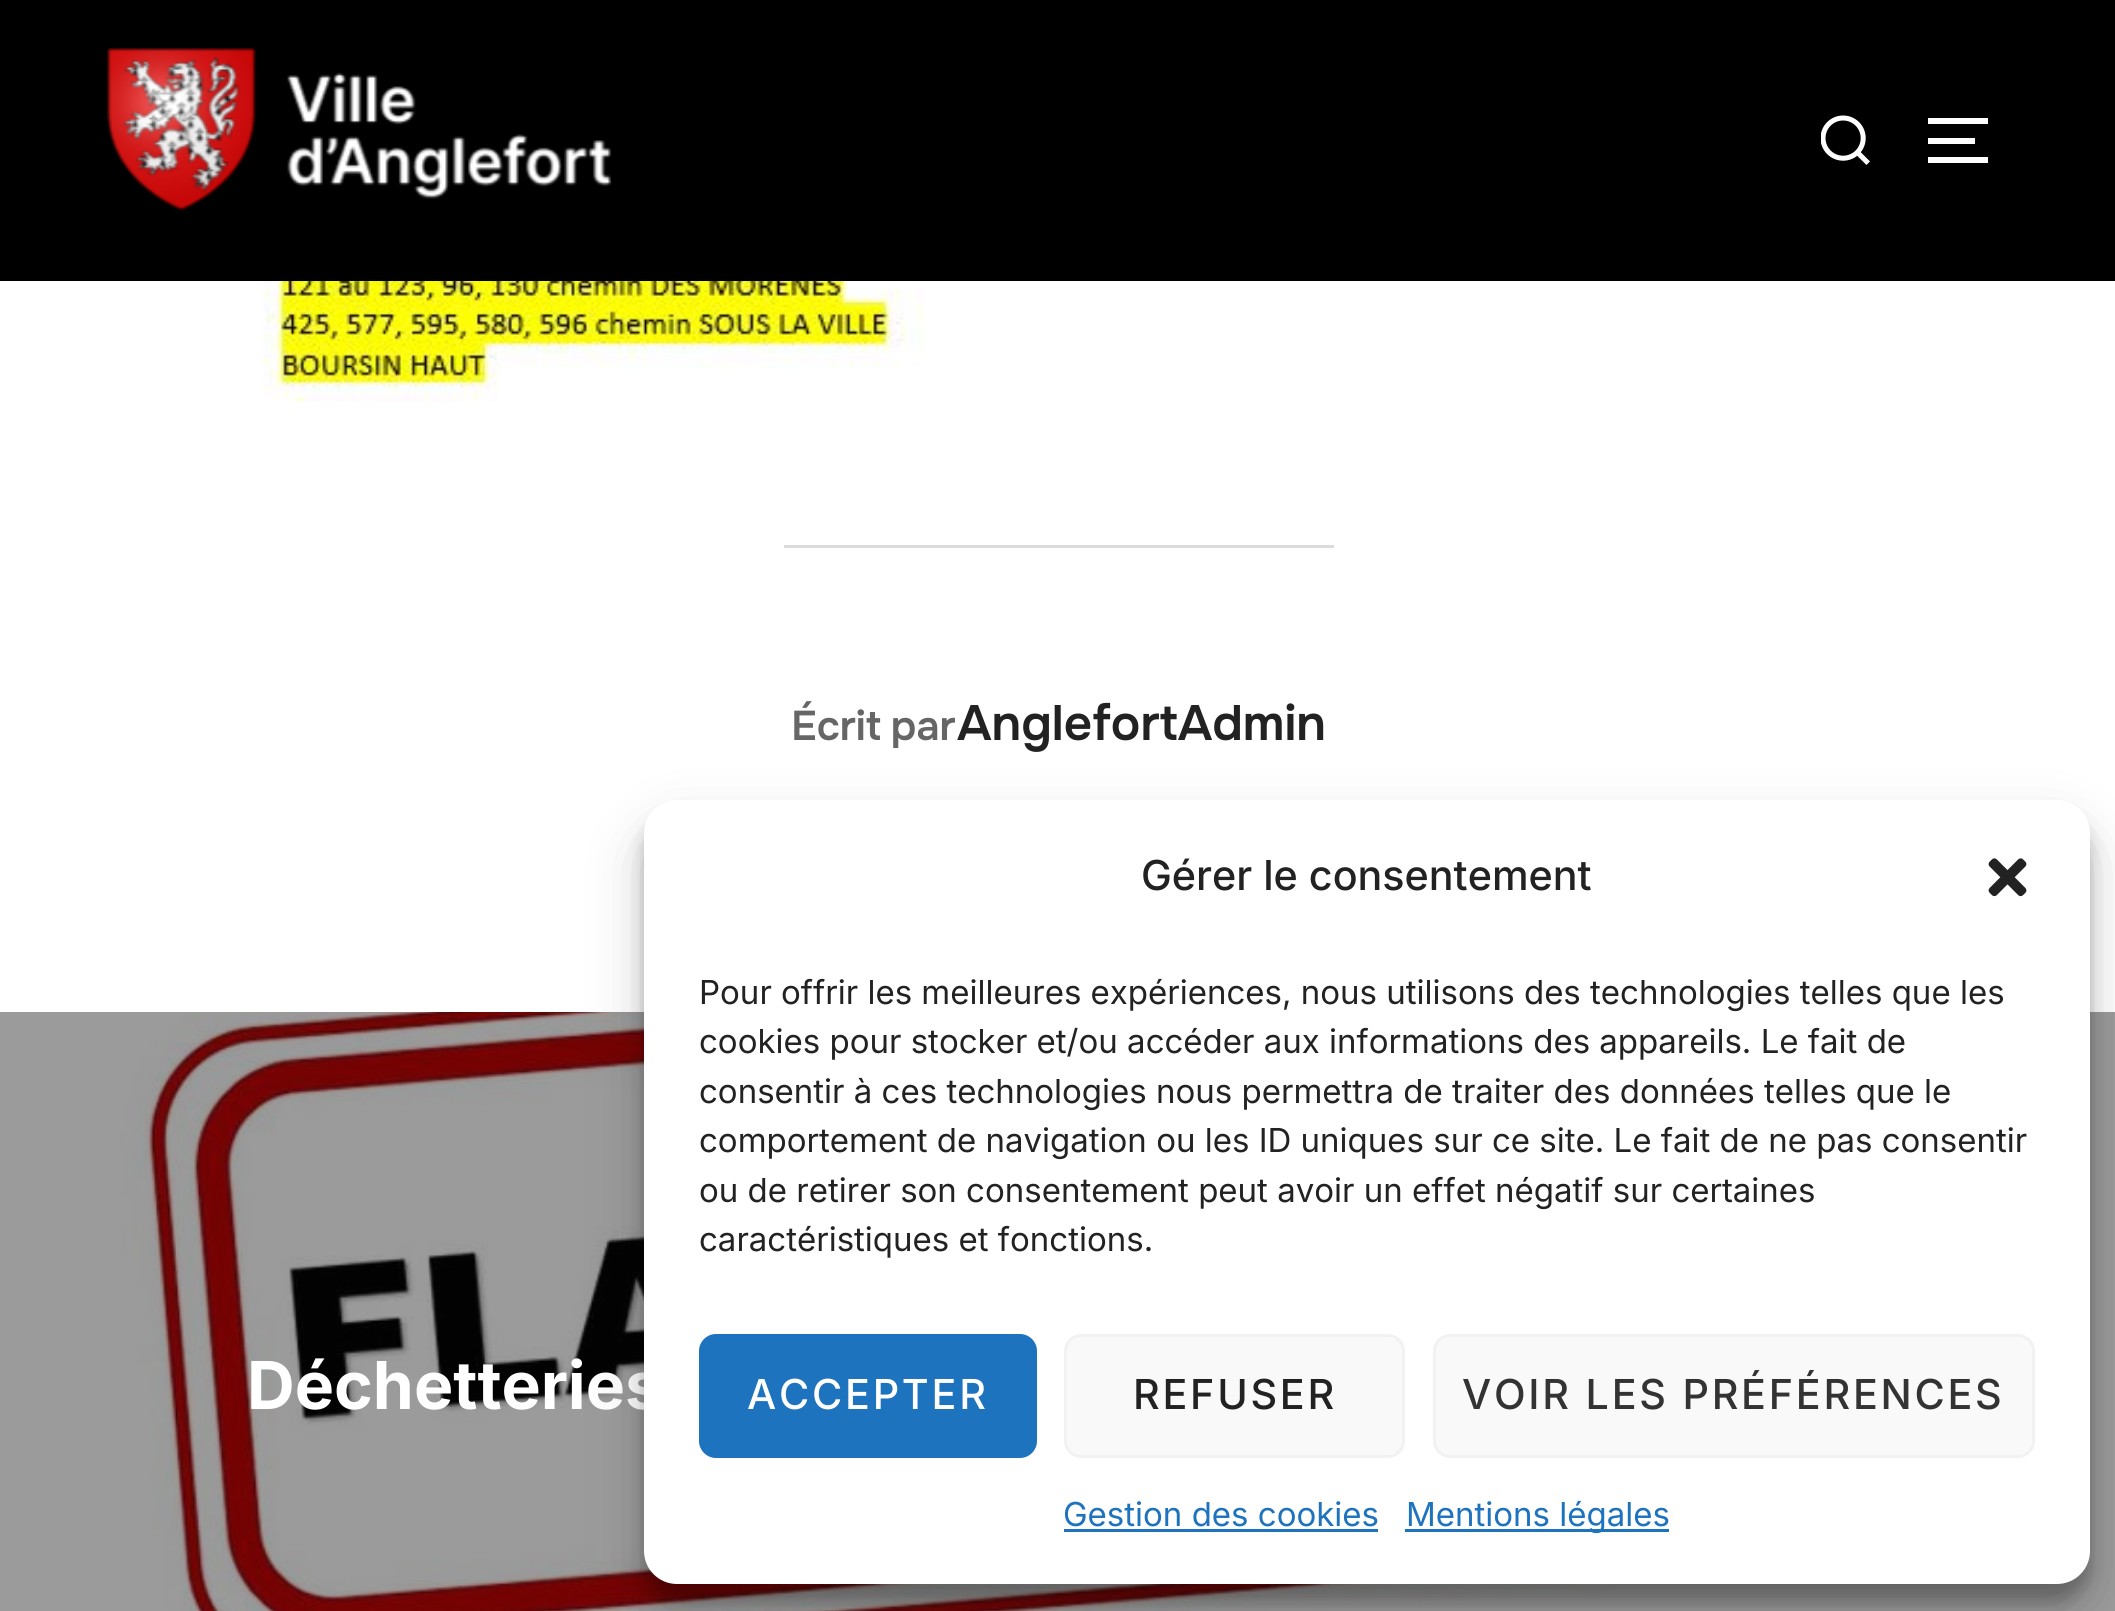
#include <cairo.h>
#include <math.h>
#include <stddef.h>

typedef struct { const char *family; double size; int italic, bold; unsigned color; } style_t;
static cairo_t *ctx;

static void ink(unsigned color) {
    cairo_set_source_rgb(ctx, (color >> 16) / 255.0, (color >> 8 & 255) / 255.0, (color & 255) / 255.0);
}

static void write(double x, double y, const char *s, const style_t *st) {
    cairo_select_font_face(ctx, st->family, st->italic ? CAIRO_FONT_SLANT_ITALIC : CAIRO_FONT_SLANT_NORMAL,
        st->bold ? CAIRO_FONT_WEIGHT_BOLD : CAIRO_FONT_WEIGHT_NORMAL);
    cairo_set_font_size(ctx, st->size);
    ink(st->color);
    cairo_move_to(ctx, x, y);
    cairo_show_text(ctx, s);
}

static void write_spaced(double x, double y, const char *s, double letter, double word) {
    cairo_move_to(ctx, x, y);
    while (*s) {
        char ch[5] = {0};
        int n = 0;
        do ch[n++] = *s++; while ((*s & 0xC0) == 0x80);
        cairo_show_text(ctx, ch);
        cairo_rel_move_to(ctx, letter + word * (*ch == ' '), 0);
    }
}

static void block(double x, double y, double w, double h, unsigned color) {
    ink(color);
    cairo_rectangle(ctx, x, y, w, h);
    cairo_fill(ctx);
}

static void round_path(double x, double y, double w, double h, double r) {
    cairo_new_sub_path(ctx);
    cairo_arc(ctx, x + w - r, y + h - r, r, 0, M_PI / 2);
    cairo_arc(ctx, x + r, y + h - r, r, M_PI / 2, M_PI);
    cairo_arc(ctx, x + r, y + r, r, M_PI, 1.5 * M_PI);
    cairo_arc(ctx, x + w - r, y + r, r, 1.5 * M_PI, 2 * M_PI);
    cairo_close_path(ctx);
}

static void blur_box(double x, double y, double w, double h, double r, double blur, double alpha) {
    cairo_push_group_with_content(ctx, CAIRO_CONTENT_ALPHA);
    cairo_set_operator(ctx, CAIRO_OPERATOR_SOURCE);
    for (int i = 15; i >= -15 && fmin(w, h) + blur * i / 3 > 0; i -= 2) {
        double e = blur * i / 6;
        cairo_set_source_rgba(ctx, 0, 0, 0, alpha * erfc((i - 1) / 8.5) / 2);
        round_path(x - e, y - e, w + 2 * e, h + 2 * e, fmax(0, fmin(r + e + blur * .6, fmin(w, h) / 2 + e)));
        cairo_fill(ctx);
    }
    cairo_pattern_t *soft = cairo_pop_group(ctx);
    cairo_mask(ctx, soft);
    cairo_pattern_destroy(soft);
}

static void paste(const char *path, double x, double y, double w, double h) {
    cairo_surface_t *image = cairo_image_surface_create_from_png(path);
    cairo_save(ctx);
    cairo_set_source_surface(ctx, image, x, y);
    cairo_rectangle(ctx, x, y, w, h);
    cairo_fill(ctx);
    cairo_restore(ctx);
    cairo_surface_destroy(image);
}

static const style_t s1 = {"Onest SemiBold", 49.5, 0, 0, 0x222222};
static const style_t s2 = {"Inter", 66, 0, 1, 0xffffff};
static const style_t s3 = {"Inter Medium", 41.25, 0, 0, 0x222222};
static const style_t s4 = {"Inter", 33, 0, 0, 0x222222};
static const style_t s5 = {"Inter", 33, 0, 0, 0x1e73be};

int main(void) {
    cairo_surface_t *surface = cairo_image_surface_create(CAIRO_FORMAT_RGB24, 2115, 1611);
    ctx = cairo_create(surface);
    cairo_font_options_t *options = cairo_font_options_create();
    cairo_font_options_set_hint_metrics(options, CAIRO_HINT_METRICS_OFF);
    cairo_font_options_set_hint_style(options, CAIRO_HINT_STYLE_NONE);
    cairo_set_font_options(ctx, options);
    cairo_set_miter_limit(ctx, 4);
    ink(0xffffff);
    cairo_paint(ctx);
    block(0, 0, 2115, 281, 0x000000);
    paste("pic1.png", 107, 48, 505, 164);
    paste("pic2.png", 1821, 115, 49, 50);
    block(1928, 118, 60, 6, 0xffffff);
    block(1928, 138, 47, 6, 0xffffff);
    block(1928, 157, 60, 6, 0xffffff);
    paste("pic3.png", 262, 281, 699, 121);
    block(784, 545, 550, 3, 0xdbdbdb);
    cairo_select_font_face(ctx, "Onest SemiBold", CAIRO_FONT_SLANT_NORMAL, CAIRO_FONT_WEIGHT_NORMAL);
    cairo_set_font_size(ctx, 41.5);
    ink(0x666666);
    write_spaced(791, 740, "Écrit par", 0, -2);
    write(957, 740, "AnglefortAdmin", &s1);
    block(0, 1012, 2115, 599, 0x060606);
    paste("pic4.png", 0, 1012, 2115, 599);
    write(247, 1409, "Déchetteries", &s2);
    ink(0x000000);
    blur_box(644, 817, 1446, 784, 33, 8, 0.23);
    blur_box(644, 828, 1446, 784, 33, 27.5, 0.19);
    ink(0xffffff);
    round_path(644, 800, 1446, 784, 33);
    cairo_fill(ctx);
    write(1141, 890, "Gérer le consentement", &s3);
    paste("pic5.png", 1988, 858, 39, 39);
    write(699, 1004, "Pour offrir les meilleures expériences, nous utilisons des technologies telles que les", &s4);
    write(699, 1053, "cookies pour stocker et/ou accéder aux informations des appareils. Le fait de", &s4);
    write(699, 1103, "consentir à ces technologies nous permettra de traiter des données telles que le", &s4);
    write(699, 1152, "comportement de navigation ou les ID uniques sur ce site. Le fait de ne pas consentir", &s4);
    write(699, 1202, "ou de retirer son consentement peut avoir un effet négatif sur certaines", &s4);
    write(699, 1251, "caractéristiques et fonctions.", &s4);
    ink(0x1e73be);
    round_path(700.5, 1335.5, 335, 121, 15.5);
    cairo_fill_preserve(ctx);
    cairo_set_line_width(ctx, 3);
    cairo_stroke(ctx);
    cairo_select_font_face(ctx, "Inter Medium", CAIRO_FONT_SLANT_NORMAL, CAIRO_FONT_WEIGHT_NORMAL);
    cairo_set_font_size(ctx, 41.25);
    ink(0xffffff);
    write_spaced(747, 1409, "ACCEPTER", 2.75, 0);
    ink(0xf9f9f9);
    round_path(1065.5, 1335.5, 338, 121, 15.5);
    cairo_fill_preserve(ctx);
    ink(0xf2f2f2);
    cairo_stroke(ctx);
    ink(0x222222);
    write_spaced(1133, 1409, "REFUSER", 2.75, 0);
    ink(0xf9f9f9);
    round_path(1434.5, 1335.5, 599, 121, 15.5);
    cairo_fill_preserve(ctx);
    ink(0xf2f2f2);
    cairo_stroke(ctx);
    ink(0x333333);
    write_spaced(1462, 1409, "VOIR LES PRÉFÉRENCES", 2.75, 0);
    write(1063, 1526, "Gestion des cookies", &s5);
    block(1064, 1529, 314, 3, 0x1e73be);
    block(1405, 1529, 264, 3, 0x1e73be);
    write(1406, 1526, "Mentions légales", &s5);
    cairo_surface_write_to_png(surface, "screenshot.png");
    cairo_font_options_destroy(options);
    cairo_destroy(ctx);
    cairo_surface_destroy(surface);
    return 0;
}
